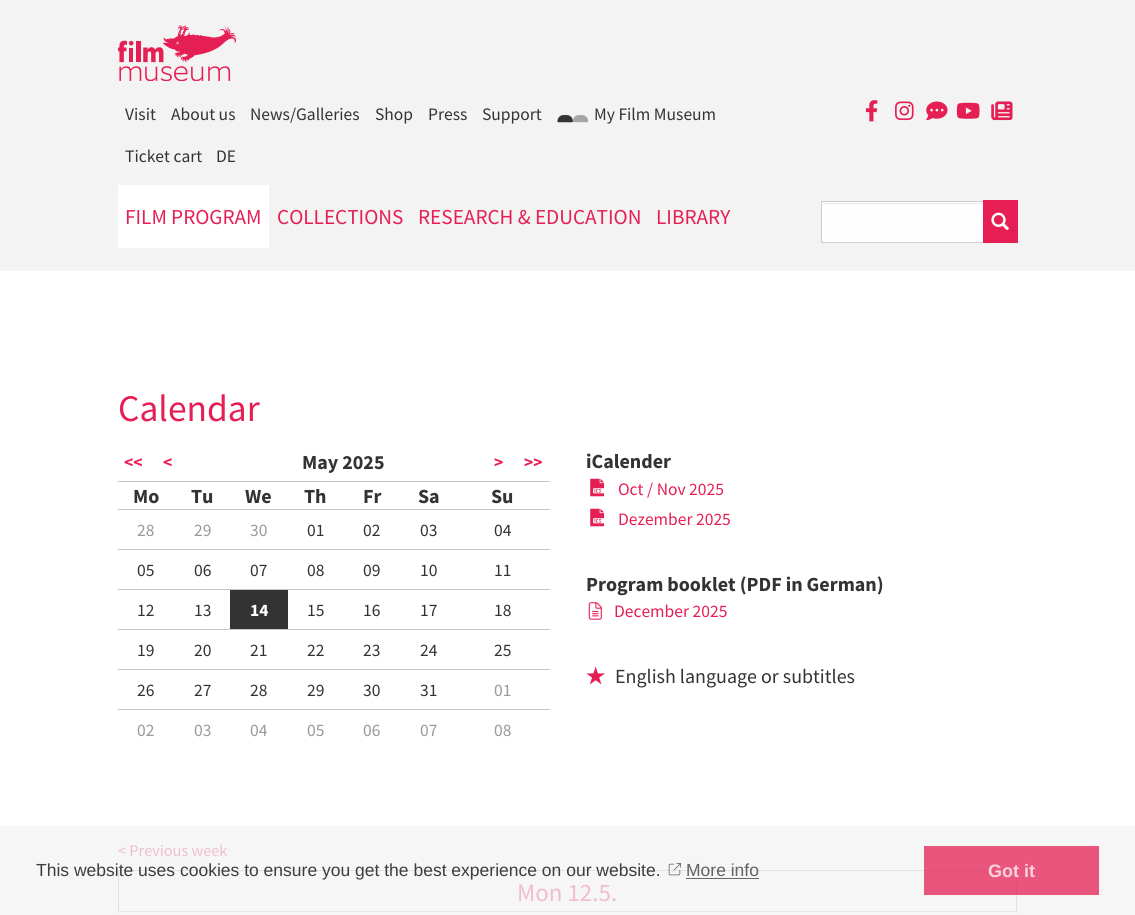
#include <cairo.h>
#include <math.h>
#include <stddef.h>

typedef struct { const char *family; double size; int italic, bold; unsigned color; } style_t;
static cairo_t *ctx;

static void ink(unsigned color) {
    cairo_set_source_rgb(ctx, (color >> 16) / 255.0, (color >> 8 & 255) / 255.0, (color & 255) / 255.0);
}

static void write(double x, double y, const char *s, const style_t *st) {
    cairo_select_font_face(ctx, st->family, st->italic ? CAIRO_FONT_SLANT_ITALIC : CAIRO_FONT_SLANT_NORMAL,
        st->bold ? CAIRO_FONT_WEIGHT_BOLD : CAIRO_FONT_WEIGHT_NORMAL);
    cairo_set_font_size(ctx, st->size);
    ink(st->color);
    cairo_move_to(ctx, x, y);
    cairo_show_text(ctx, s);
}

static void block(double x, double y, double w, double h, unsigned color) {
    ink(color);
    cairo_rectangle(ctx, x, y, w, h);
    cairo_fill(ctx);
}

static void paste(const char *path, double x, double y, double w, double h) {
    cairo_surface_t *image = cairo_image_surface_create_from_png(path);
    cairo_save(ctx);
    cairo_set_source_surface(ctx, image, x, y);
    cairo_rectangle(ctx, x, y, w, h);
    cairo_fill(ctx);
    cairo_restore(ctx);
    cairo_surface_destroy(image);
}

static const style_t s1 = {"Source Sans Pro", 17.5, 0, 0, 0x333333};
static const style_t s2 = {"Source Sans Pro", 21.25, 0, 0, 0xe51f54};
static const style_t s3 = {"Source Sans Pro", 37.5, 0, 0, 0xe51f54};
static const style_t s4 = {"Source Sans Pro", 17.5, 0, 1, 0xe51f54};
static const style_t s5 = {"Source Sans Pro", 20, 0, 1, 0x333333};
static const style_t s6 = {"Source Sans Pro", 17.5, 0, 0, 0x999999};
static const style_t s7 = {"Source Sans Pro", 17.5, 0, 1, 0xffffff};
static const style_t s8 = {"Source Sans Pro", 17.5, 0, 0, 0xe51f54};
static const style_t s9 = {"Source Sans Pro", 20, 0, 0, 0x333333};
static const style_t s10 = {"Source Sans Pro", 16.25, 0, 0, 0xf0becb};
static const style_t s11 = {"Source Sans Pro", 25, 0, 0, 0xf0becb};
static const style_t s12 = {"Liberation Sans", 17.5, 0, 0, 0x3d3d3d};
static const style_t s13 = {"Liberation Sans", 17.5, 0, 0, 0x626262};
static const style_t s14 = {"Liberation Sans", 18, 0, 1, 0xf9d4de};

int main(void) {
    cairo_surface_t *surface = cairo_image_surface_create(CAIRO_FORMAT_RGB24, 1135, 915);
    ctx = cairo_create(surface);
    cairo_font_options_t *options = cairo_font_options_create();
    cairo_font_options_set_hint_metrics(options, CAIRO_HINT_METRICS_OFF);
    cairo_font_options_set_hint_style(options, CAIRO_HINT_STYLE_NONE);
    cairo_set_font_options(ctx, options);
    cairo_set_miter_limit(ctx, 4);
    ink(0xffffff);
    cairo_paint(ctx);
    block(0, 826, 1135, 89, 0xf6f6f6);
    block(0, 0, 1135, 271, 0xf3f3f3);
    paste("pic1.png", 118, 25, 118, 56);
    write(125, 120, "Visit", &s1);
    write(171, 120, "About us", &s1);
    write(250, 120, "News/Galleries", &s1);
    write(375, 120, "Shop", &s1);
    write(428, 120, "Press", &s1);
    write(482, 120, "Support", &s1);
    paste("pic2.png", 557, 115, 16, 8);
    paste("pic3.png", 557, 115, 32, 8);
    write(594, 120, "My Film Museum", &s1);
    write(125, 162, "Ticket cart", &s1);
    write(216, 162, "DE", &s1);
    paste("pic4.png", 865, 100, 13, 22);
    paste("pic5.png", 895, 101, 19, 20);
    paste("pic6.png", 926, 101, 22, 19);
    paste("pic7.png", 956, 102, 24, 17);
    paste("pic8.png", 991, 101, 22, 20);
    block(118, 185, 151, 63, 0xffffff);
    write(125, 224, "FILM PROGRAM", &s2);
    write(277, 224, "COLLECTIONS", &s2);
    write(418, 224, "RESEARCH & EDUCATION", &s2);
    write(656, 224, "LIBRARY", &s2);
    block(822, 202, 161, 40, 0xfefefe);
    block(823, 203, 160, 1, 0xebebeb);
    cairo_rectangle(ctx, 821.5, 201.5, 162, 41);
    ink(0xcccccc);
    cairo_set_line_width(ctx, 1);
    cairo_stroke(ctx);
    block(983, 200, 35, 43, 0xe51f54);
    paste("pic9.png", 991, 212, 18, 18);
    write(118, 421, "Calendar", &s3);
    block(118, 481, 432, 1, 0xc7c7c7);
    write(124, 468, "<<", &s4);
    write(163, 468, "<", &s4);
    write(302, 469, "May 2025", &s5);
    write(494, 468, ">", &s4);
    write(524, 468, ">>", &s4);
    block(118, 509, 432, 1, 0xc7c7c7);
    write(133, 503, "Mo", &s5);
    write(191, 503, "Tu", &s5);
    write(245, 503, "We", &s5);
    write(304, 503, "Th", &s5);
    write(363, 503, "Fr", &s5);
    write(418, 503, "Sa", &s5);
    write(491, 503, "Su", &s5);
    block(118, 549, 432, 1, 0xc7c7c7);
    write(137, 536, "28", &s6);
    write(194, 536, "29", &s6);
    write(250, 536, "30", &s6);
    write(307, 536, "01", &s1);
    write(363, 536, "02", &s1);
    write(420, 536, "03", &s1);
    write(494, 536, "04", &s1);
    block(118, 589, 432, 1, 0xc7c7c7);
    write(137, 576, "05", &s1);
    write(194, 576, "06", &s1);
    write(250, 576, "07", &s1);
    write(307, 576, "08", &s1);
    write(363, 576, "09", &s1);
    write(420, 576, "10", &s1);
    write(494, 576, "11", &s1);
    block(118, 629, 432, 1, 0xc7c7c7);
    write(137, 616, "12", &s1);
    write(194, 616, "13", &s1);
    block(230, 590, 58, 39, 0x333333);
    write(250, 616, "14", &s7);
    write(307, 616, "15", &s1);
    write(363, 616, "16", &s1);
    write(420, 616, "17", &s1);
    write(494, 616, "18", &s1);
    block(118, 669, 432, 1, 0xc7c7c7);
    write(137, 656, "19", &s1);
    write(194, 656, "20", &s1);
    write(250, 656, "21", &s1);
    write(307, 656, "22", &s1);
    write(363, 656, "23", &s1);
    write(420, 656, "24", &s1);
    write(494, 656, "25", &s1);
    block(118, 709, 432, 1, 0xc7c7c7);
    write(137, 696, "26", &s1);
    write(194, 696, "27", &s1);
    write(250, 696, "28", &s1);
    write(307, 696, "29", &s1);
    write(363, 696, "30", &s1);
    write(420, 696, "31", &s1);
    write(494, 696, "01", &s6);
    write(137, 736, "02", &s6);
    write(194, 736, "03", &s6);
    write(250, 736, "04", &s6);
    write(307, 736, "05", &s6);
    write(363, 736, "06", &s6);
    write(420, 736, "07", &s6);
    write(494, 736, "08", &s6);
    write(586, 468, "iCalender", &s5);
    paste("pic10.png", 590, 478, 15, 19);
    write(618, 495, "Oct / Nov 2025", &s8);
    paste("pic10.png", 590, 508, 15, 19);
    write(618, 525, "Dezember 2025", &s8);
    write(586, 591, "Program booklet (PDF in German)", &s5);
    paste("pic11.png", 588, 602, 14, 18);
    write(614, 617, "December 2025", &s8);
    paste("pic12.png", 586, 666, 19, 19);
    write(615, 683, "English language or subtitles", &s9);
    write(118, 856, "< Previous week", &s10);
    block(118, 870, 900, 1, 0xe2e2e2);
    block(1016, 870, 1, 43, 0xe2e2e2);
    block(118, 911, 900, 1, 0xe8e8e8);
    block(118, 870, 1, 43, 0xe2e2e2);
    write(517, 901, "Mon 12.5.", &s11);
    write(36, 876, "This website uses cookies to ensure you get the best experience on our website.", &s12);
    paste("pic13.png", 668, 863, 13, 13);
    write(686, 876, "More info", &s13);
    block(686, 878, 73, 1, 0x666666);
    cairo_set_source_rgba(ctx, 0.898, 0.122, 0.329, 0.75);
    cairo_rectangle(ctx, 924, 846, 175, 49);
    cairo_fill(ctx);
    write(988, 877, "Got it", &s14);
    cairo_surface_write_to_png(surface, "screenshot.png");
    cairo_font_options_destroy(options);
    cairo_destroy(ctx);
    cairo_surface_destroy(surface);
    return 0;
}
